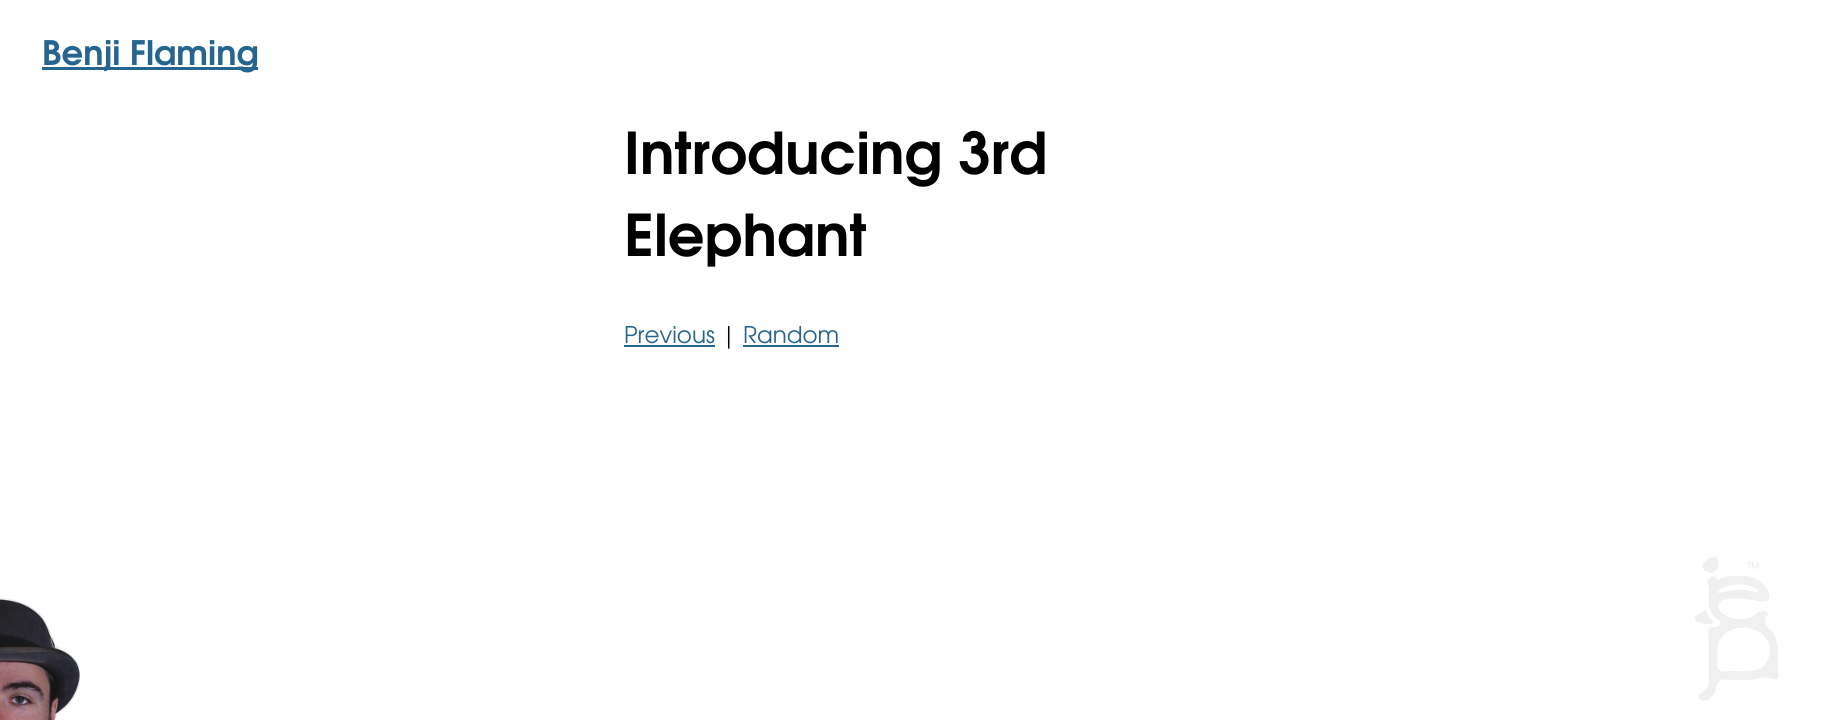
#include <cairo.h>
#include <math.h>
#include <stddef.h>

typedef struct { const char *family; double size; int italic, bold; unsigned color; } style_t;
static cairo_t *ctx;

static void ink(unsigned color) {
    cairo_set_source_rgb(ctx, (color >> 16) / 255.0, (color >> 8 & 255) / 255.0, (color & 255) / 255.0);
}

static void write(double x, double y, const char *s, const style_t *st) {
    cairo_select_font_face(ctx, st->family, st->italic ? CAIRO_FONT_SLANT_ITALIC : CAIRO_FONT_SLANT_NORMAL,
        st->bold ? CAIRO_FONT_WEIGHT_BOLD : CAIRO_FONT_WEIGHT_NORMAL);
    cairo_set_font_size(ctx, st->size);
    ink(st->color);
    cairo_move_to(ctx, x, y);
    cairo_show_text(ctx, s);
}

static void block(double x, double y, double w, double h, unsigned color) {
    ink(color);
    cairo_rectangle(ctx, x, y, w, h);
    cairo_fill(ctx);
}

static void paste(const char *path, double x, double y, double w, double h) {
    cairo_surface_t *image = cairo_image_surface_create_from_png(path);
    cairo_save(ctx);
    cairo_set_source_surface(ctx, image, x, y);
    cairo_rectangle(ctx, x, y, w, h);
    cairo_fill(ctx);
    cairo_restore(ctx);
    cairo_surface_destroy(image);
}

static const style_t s1 = {"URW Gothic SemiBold", 33.75, 0, 0, 0x276591};
static const style_t s2 = {"URW Gothic SemiBold", 57.5, 0, 0, 0x000000};
static const style_t s3 = {"URW Gothic", 23, 0, 0, 0x276591};
static const style_t s4 = {"URW Gothic", 23, 0, 0, 0x000000};

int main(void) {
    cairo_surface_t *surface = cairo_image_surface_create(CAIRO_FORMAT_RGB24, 1824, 720);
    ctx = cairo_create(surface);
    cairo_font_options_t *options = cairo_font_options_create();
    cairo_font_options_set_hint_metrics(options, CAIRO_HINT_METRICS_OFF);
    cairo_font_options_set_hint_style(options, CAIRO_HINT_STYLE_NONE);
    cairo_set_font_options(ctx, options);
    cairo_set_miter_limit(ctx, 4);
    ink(0xffffff);
    cairo_paint(ctx);
    block(42, 67, 216, 3, 0x276591);
    write(42, 65, "Benji Flaming", &s1);
    write(624, 174, "Introducing 3rd", &s2);
    write(624, 256, "Elephant", &s2);
    write(624, 343, "Previous", &s3);
    block(624, 345, 91, 2, 0x276591);
    write(721, 343, "|", &s4);
    write(743, 343, "Random", &s3);
    block(743, 345, 96, 2, 0x276591);
    paste("pic1.png", 0, 598, 81, 122);
    paste("pic2.png", 1695, 557, 84, 144);
    cairo_surface_write_to_png(surface, "screenshot.png");
    cairo_font_options_destroy(options);
    cairo_destroy(ctx);
    cairo_surface_destroy(surface);
    return 0;
}
